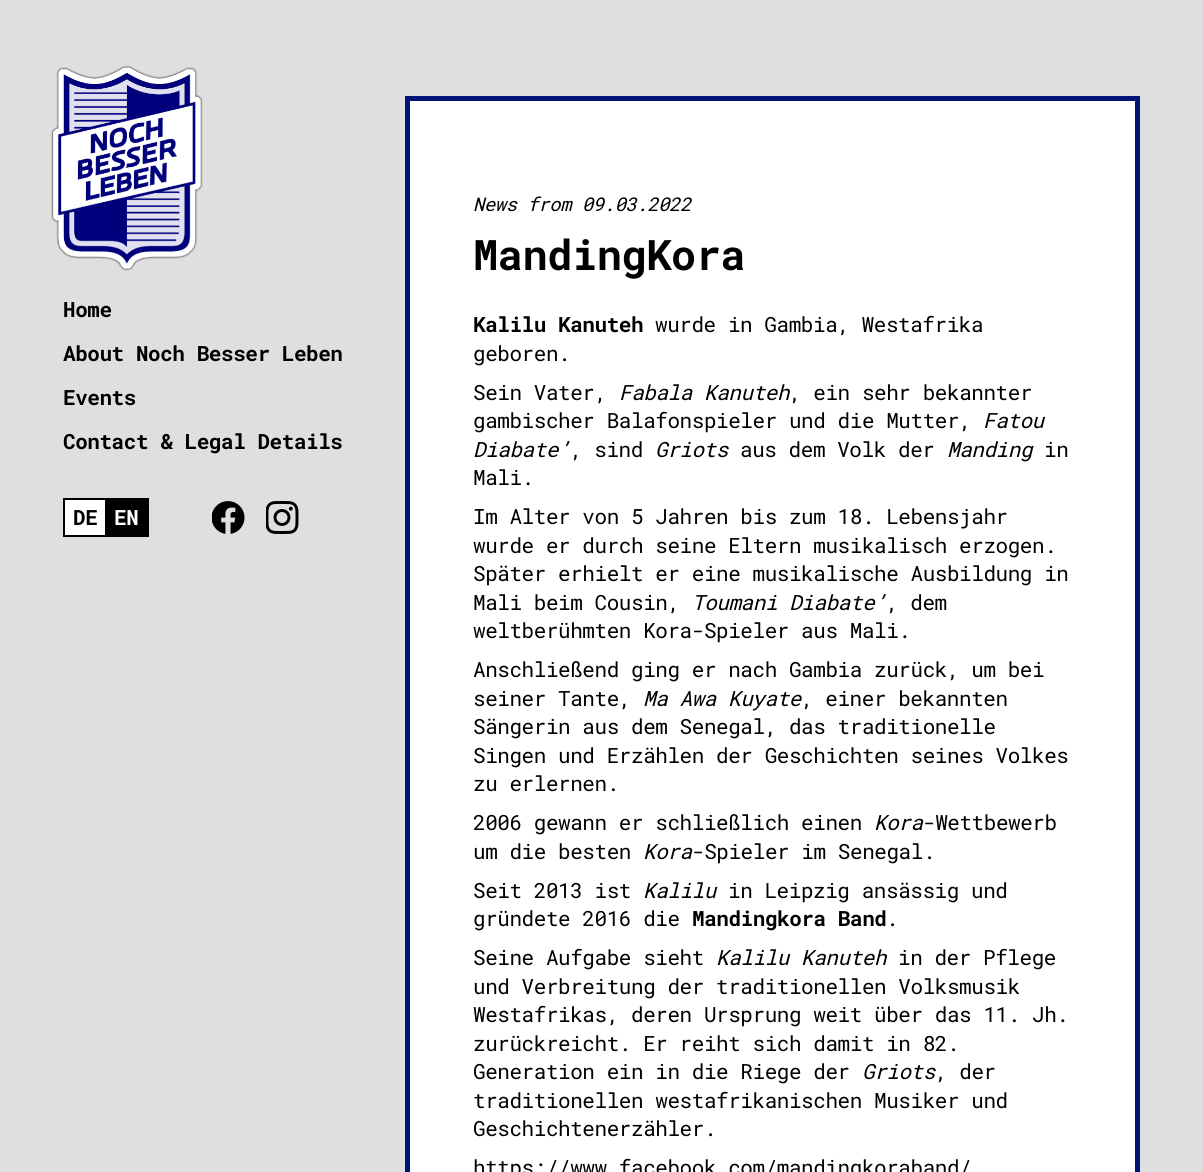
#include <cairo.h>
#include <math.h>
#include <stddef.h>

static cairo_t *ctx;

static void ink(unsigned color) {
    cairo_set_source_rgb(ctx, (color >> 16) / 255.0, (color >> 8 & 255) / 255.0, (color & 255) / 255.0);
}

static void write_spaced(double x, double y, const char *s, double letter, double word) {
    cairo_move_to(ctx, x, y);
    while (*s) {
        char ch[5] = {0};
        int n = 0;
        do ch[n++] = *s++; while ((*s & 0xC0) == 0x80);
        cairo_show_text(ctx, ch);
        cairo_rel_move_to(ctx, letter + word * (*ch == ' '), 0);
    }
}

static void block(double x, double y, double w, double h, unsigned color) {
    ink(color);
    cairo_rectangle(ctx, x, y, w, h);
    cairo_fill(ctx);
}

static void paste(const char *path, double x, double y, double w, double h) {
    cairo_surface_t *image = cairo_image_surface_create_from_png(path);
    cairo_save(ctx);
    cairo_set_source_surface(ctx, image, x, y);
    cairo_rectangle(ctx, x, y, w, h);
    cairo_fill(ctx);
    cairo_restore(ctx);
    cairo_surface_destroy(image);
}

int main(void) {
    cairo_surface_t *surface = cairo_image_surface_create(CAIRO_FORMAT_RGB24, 1203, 1172);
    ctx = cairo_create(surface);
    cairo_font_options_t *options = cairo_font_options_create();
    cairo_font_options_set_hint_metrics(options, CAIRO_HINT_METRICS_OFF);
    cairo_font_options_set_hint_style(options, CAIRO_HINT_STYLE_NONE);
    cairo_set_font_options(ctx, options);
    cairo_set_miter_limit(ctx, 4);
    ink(0xdfdfdf);
    cairo_paint(ctx);
    paste("pic1.png", 51, 65, 152, 206);
    cairo_select_font_face(ctx, "Roboto Mono", CAIRO_FONT_SLANT_NORMAL, CAIRO_FONT_WEIGHT_BOLD);
    cairo_set_font_size(ctx, 21);
    ink(0x000000);
    write_spaced(63, 317, "Home", -0.45, 0);
    write_spaced(63, 361, "About Noch Besser Leben", -0.45, 0);
    write_spaced(63, 405, "Events", -0.45, 0);
    write_spaced(63, 449, "Contact & Legal Details", -0.45, 0);
    block(65, 500, 40, 35, 0xffffff);
    cairo_rectangle(ctx, 64, 499, 84, 37);
    ink(0x000000);
    cairo_stroke(ctx);
    write_spaced(73, 525, "DE", -0.45, 0);
    block(105, 500, 42, 35, 0x000000);
    ink(0xffffff);
    write_spaced(114, 525, "EN", -0.45, 0);
    paste("pic2.png", 212, 501, 33, 33);
    paste("pic3.png", 266, 501, 33, 33);
    cairo_rectangle(ctx, 407.5, 98.5, 730, 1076);
    cairo_fill_preserve(ctx);
    ink(0x01137b);
    cairo_set_line_width(ctx, 5);
    cairo_stroke(ctx);
    cairo_select_font_face(ctx, "Roboto Mono", CAIRO_FONT_SLANT_ITALIC, CAIRO_FONT_WEIGHT_NORMAL);
    cairo_set_font_size(ctx, 18.9);
    ink(0x000000);
    write_spaced(473, 211, "News from 09.03.2022", -0.45, 0);
    cairo_select_font_face(ctx, "Roboto Mono", CAIRO_FONT_SLANT_NORMAL, CAIRO_FONT_WEIGHT_BOLD);
    cairo_set_font_size(ctx, 42);
    write_spaced(473, 270, "MandingKora", -0.45, 0);
    cairo_set_font_size(ctx, 21);
    write_spaced(473, 332, "Kalilu Kanuteh", -0.45, 0);
    cairo_select_font_face(ctx, "Roboto Mono", CAIRO_FONT_SLANT_NORMAL, CAIRO_FONT_WEIGHT_NORMAL);
    write_spaced(655, 332, "wurde in Gambia, Westafrika", -0.45, 0);
    write_spaced(473, 361, "geboren.", -0.45, 0);
    write_spaced(473, 400, "Sein Vater,", -0.45, 0);
    cairo_select_font_face(ctx, "Roboto Mono", CAIRO_FONT_SLANT_ITALIC, CAIRO_FONT_WEIGHT_NORMAL);
    write_spaced(619, 400, "Fabala Kanuteh", -0.45, 0);
    cairo_select_font_face(ctx, "Roboto Mono", CAIRO_FONT_SLANT_NORMAL, CAIRO_FONT_WEIGHT_NORMAL);
    write_spaced(789, 400, ", ein sehr bekannter", -0.45, 0);
    write_spaced(473, 428, "gambischer Balafonspieler und die Mutter,", -0.45, 0);
    cairo_select_font_face(ctx, "Roboto Mono", CAIRO_FONT_SLANT_ITALIC, CAIRO_FONT_WEIGHT_NORMAL);
    write_spaced(983, 428, "Fatou", -0.45, 0);
    write_spaced(473, 457, "Diabate’", -0.45, 0);
    cairo_select_font_face(ctx, "Roboto Mono", CAIRO_FONT_SLANT_NORMAL, CAIRO_FONT_WEIGHT_NORMAL);
    write_spaced(570, 457, ", sind", -0.45, 0);
    cairo_select_font_face(ctx, "Roboto Mono", CAIRO_FONT_SLANT_ITALIC, CAIRO_FONT_WEIGHT_NORMAL);
    write_spaced(655, 457, "Griots", -0.45, 0);
    cairo_select_font_face(ctx, "Roboto Mono", CAIRO_FONT_SLANT_NORMAL, CAIRO_FONT_WEIGHT_NORMAL);
    write_spaced(740, 457, "aus dem Volk der", -0.45, 0);
    cairo_select_font_face(ctx, "Roboto Mono", CAIRO_FONT_SLANT_ITALIC, CAIRO_FONT_WEIGHT_NORMAL);
    write_spaced(947, 457, "Manding", -0.45, 0);
    cairo_select_font_face(ctx, "Roboto Mono", CAIRO_FONT_SLANT_NORMAL, CAIRO_FONT_WEIGHT_NORMAL);
    write_spaced(1044, 457, "in", -0.45, 0);
    write_spaced(473, 485, "Mali.", -0.45, 0);
    write_spaced(473, 524, "Im Alter von 5 Jahren bis zum 18. Lebensjahr", -0.45, 0);
    write_spaced(473, 553, "wurde er durch seine Eltern musikalisch erzogen.", -0.45, 0);
    write_spaced(473, 581, "Später erhielt er eine musikalische Ausbildung in", -0.45, 0);
    write_spaced(473, 610, "Mali beim Cousin,", -0.45, 0);
    cairo_select_font_face(ctx, "Roboto Mono", CAIRO_FONT_SLANT_ITALIC, CAIRO_FONT_WEIGHT_NORMAL);
    write_spaced(692, 610, "Toumani Diabate’", -0.45, 0);
    cairo_select_font_face(ctx, "Roboto Mono", CAIRO_FONT_SLANT_NORMAL, CAIRO_FONT_WEIGHT_NORMAL);
    write_spaced(886, 610, ", dem", -0.45, 0);
    write_spaced(473, 638, "weltberühmten Kora-Spieler aus Mali.", -0.45, 0);
    write_spaced(473, 677, "Anschließend ging er nach Gambia zurück, um bei", -0.45, 0);
    write_spaced(473, 706, "seiner Tante,", -0.45, 0);
    cairo_select_font_face(ctx, "Roboto Mono", CAIRO_FONT_SLANT_ITALIC, CAIRO_FONT_WEIGHT_NORMAL);
    write_spaced(643, 706, "Ma Awa Kuyate", -0.45, 0);
    cairo_select_font_face(ctx, "Roboto Mono", CAIRO_FONT_SLANT_NORMAL, CAIRO_FONT_WEIGHT_NORMAL);
    write_spaced(801, 706, ", einer bekannten", -0.45, 0);
    write_spaced(473, 734, "Sängerin aus dem Senegal, das traditionelle", -0.45, 0);
    write_spaced(473, 763, "Singen und Erzählen der Geschichten seines Volkes", -0.45, 0);
    write_spaced(473, 791, "zu erlernen.", -0.45, 0);
    write_spaced(473, 830, "2006 gewann er schließlich einen", -0.45, 0);
    cairo_select_font_face(ctx, "Roboto Mono", CAIRO_FONT_SLANT_ITALIC, CAIRO_FONT_WEIGHT_NORMAL);
    write_spaced(874, 830, "Kora", -0.45, 0);
    cairo_select_font_face(ctx, "Roboto Mono", CAIRO_FONT_SLANT_NORMAL, CAIRO_FONT_WEIGHT_NORMAL);
    write_spaced(923, 830, "-Wettbewerb", -0.45, 0);
    write_spaced(473, 859, "um die besten", -0.45, 0);
    cairo_select_font_face(ctx, "Roboto Mono", CAIRO_FONT_SLANT_ITALIC, CAIRO_FONT_WEIGHT_NORMAL);
    write_spaced(643, 859, "Kora", -0.45, 0);
    cairo_select_font_face(ctx, "Roboto Mono", CAIRO_FONT_SLANT_NORMAL, CAIRO_FONT_WEIGHT_NORMAL);
    write_spaced(692, 859, "-Spieler im Senegal.", -0.45, 0);
    write_spaced(473, 898, "Seit 2013 ist", -0.45, 0);
    cairo_select_font_face(ctx, "Roboto Mono", CAIRO_FONT_SLANT_ITALIC, CAIRO_FONT_WEIGHT_NORMAL);
    write_spaced(643, 898, "Kalilu", -0.45, 0);
    cairo_select_font_face(ctx, "Roboto Mono", CAIRO_FONT_SLANT_NORMAL, CAIRO_FONT_WEIGHT_NORMAL);
    write_spaced(728, 898, "in Leipzig ansässig und", -0.45, 0);
    write_spaced(473, 926, "gründete 2016 die", -0.45, 0);
    cairo_select_font_face(ctx, "Roboto Mono", CAIRO_FONT_SLANT_NORMAL, CAIRO_FONT_WEIGHT_BOLD);
    write_spaced(692, 926, "Mandingkora Band", -0.45, 0);
    cairo_select_font_face(ctx, "Roboto Mono", CAIRO_FONT_SLANT_NORMAL, CAIRO_FONT_WEIGHT_NORMAL);
    write_spaced(886, 926, ".", -0.45, 0);
    write_spaced(473, 965, "Seine Aufgabe sieht", -0.45, 0);
    cairo_select_font_face(ctx, "Roboto Mono", CAIRO_FONT_SLANT_ITALIC, CAIRO_FONT_WEIGHT_NORMAL);
    write_spaced(716, 965, "Kalilu Kanuteh", -0.45, 0);
    cairo_select_font_face(ctx, "Roboto Mono", CAIRO_FONT_SLANT_NORMAL, CAIRO_FONT_WEIGHT_NORMAL);
    write_spaced(898, 965, "in der Pflege", -0.45, 0);
    write_spaced(473, 994, "und Verbreitung der traditionellen Volksmusik", -0.45, 0);
    write_spaced(473, 1022, "Westafrikas, deren Ursprung weit über das 11. Jh.", -0.45, 0);
    write_spaced(473, 1051, "zurückreicht. Er reiht sich damit in 82.", -0.45, 0);
    write_spaced(473, 1079, "Generation ein in die Riege der", -0.45, 0);
    cairo_select_font_face(ctx, "Roboto Mono", CAIRO_FONT_SLANT_ITALIC, CAIRO_FONT_WEIGHT_NORMAL);
    write_spaced(862, 1079, "Griots", -0.45, 0);
    cairo_select_font_face(ctx, "Roboto Mono", CAIRO_FONT_SLANT_NORMAL, CAIRO_FONT_WEIGHT_NORMAL);
    write_spaced(935, 1079, ", der", -0.45, 0);
    write_spaced(473, 1108, "traditionellen westafrikanischen Musiker und", -0.45, 0);
    write_spaced(473, 1136, "Geschichtenerzähler.", -0.45, 0);
    write_spaced(473, 1175, "https://www.facebook.com/mandingkoraband/", -0.45, 0);
    cairo_surface_write_to_png(surface, "screenshot.png");
    cairo_font_options_destroy(options);
    cairo_destroy(ctx);
    cairo_surface_destroy(surface);
    return 0;
}
